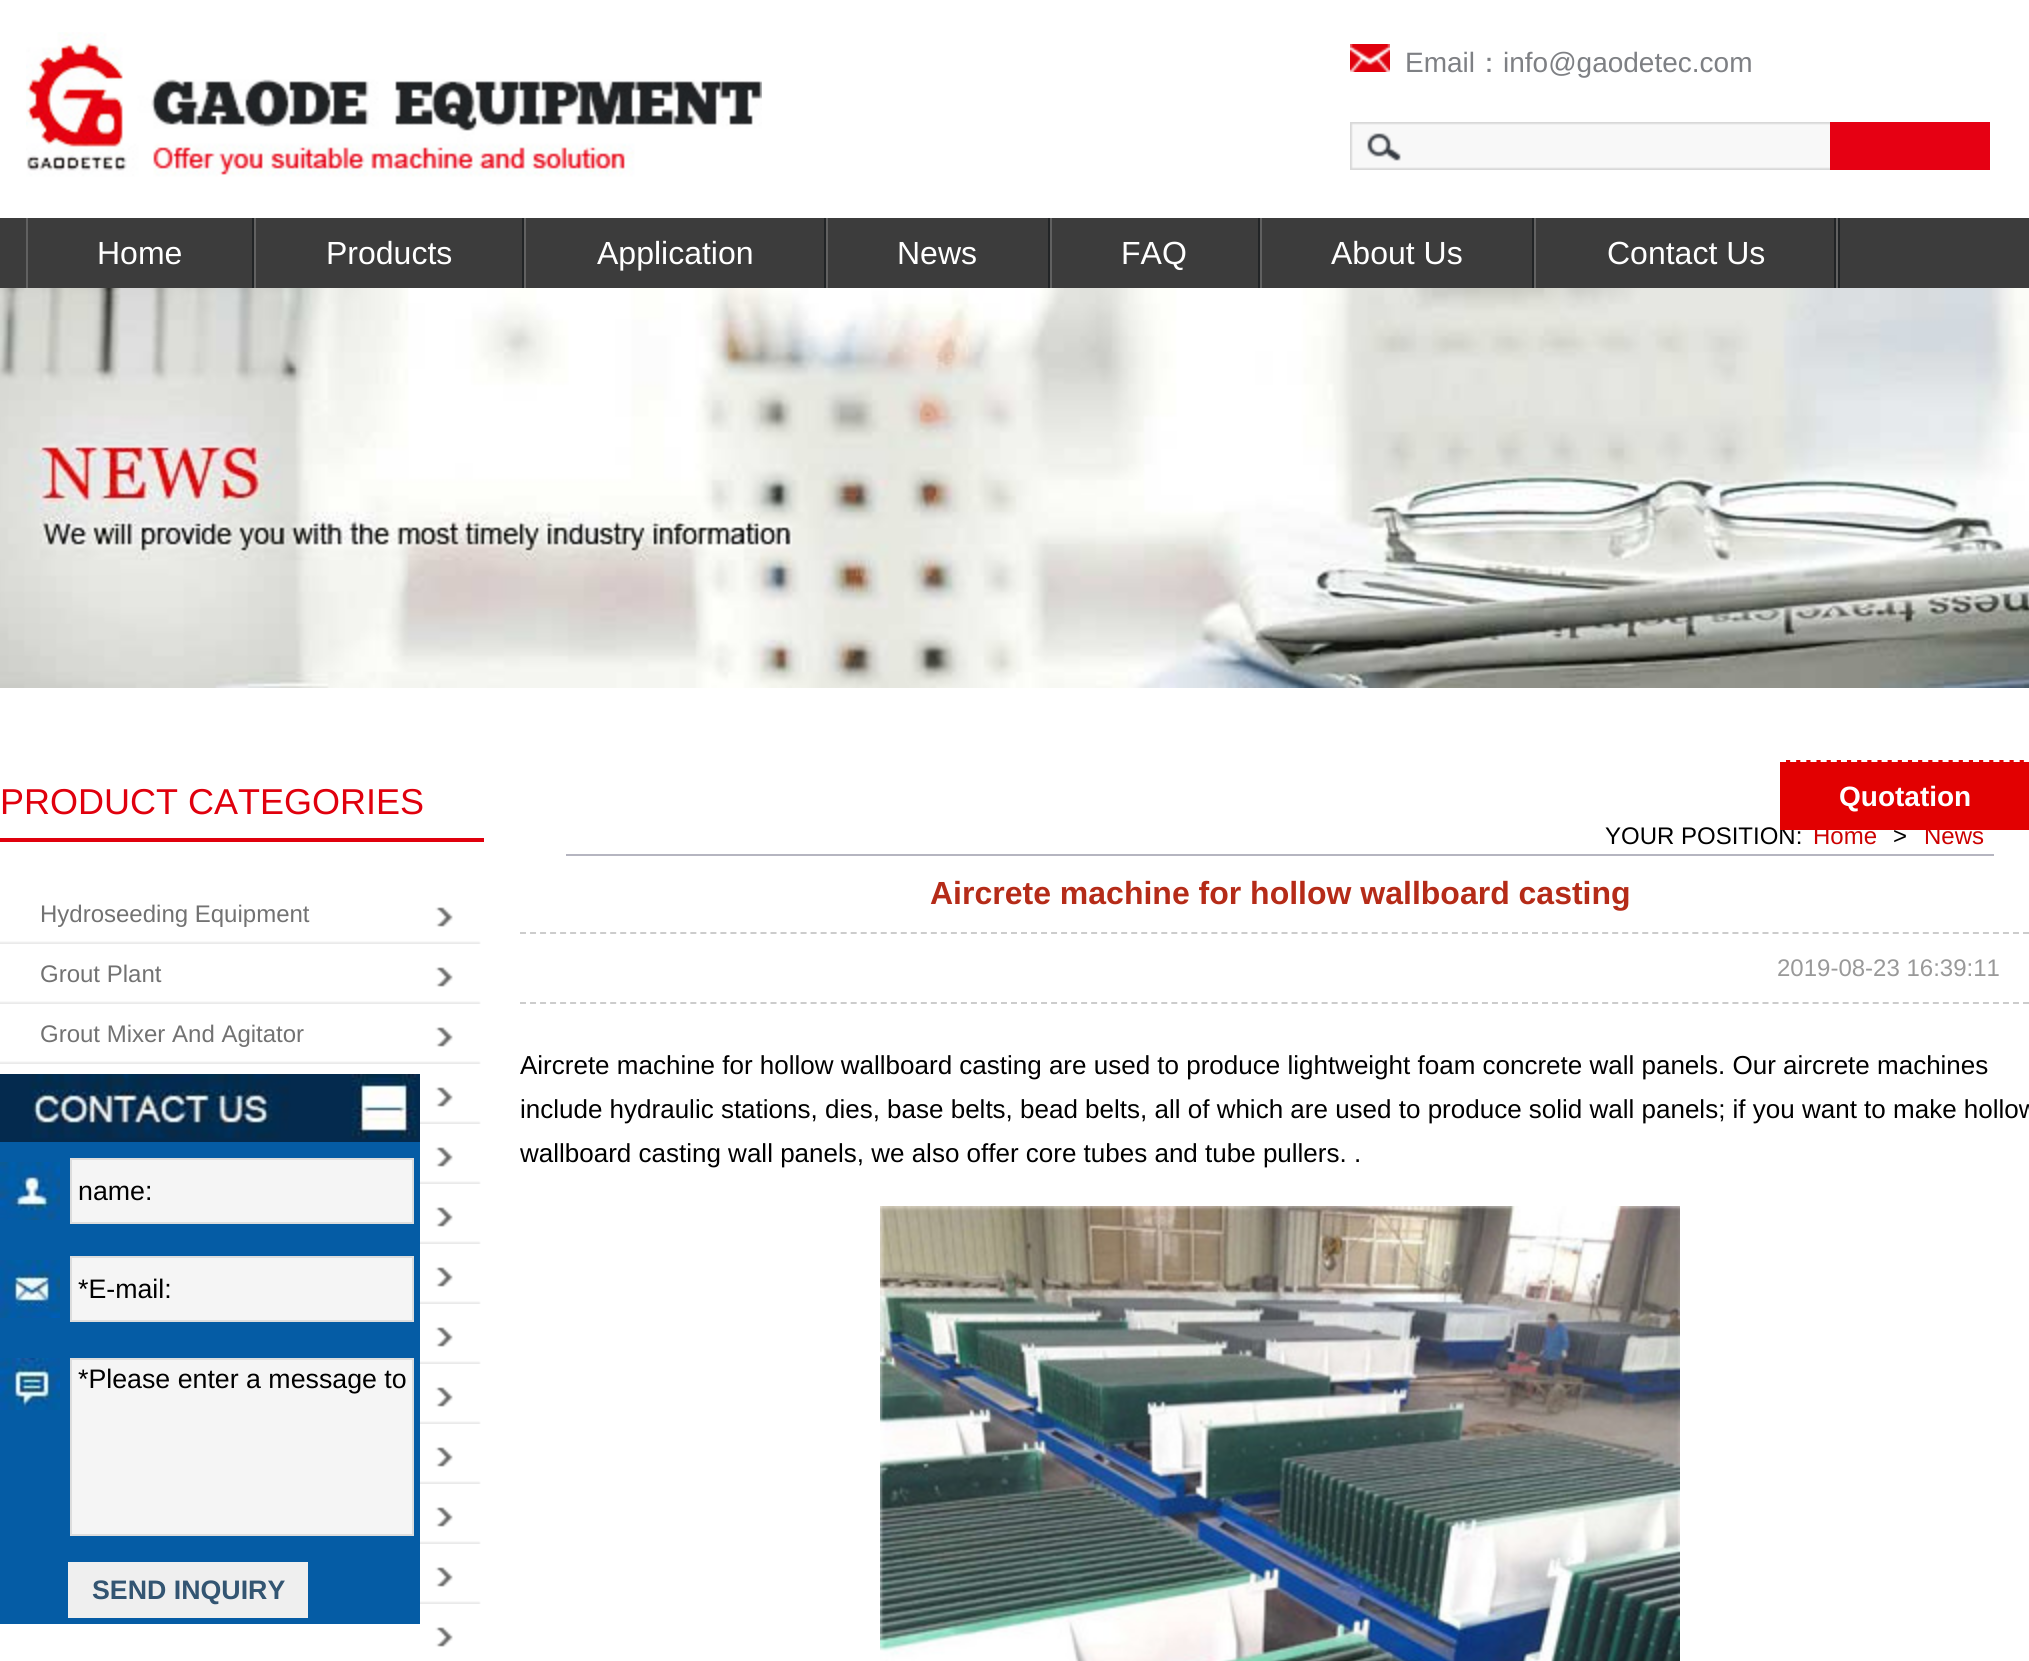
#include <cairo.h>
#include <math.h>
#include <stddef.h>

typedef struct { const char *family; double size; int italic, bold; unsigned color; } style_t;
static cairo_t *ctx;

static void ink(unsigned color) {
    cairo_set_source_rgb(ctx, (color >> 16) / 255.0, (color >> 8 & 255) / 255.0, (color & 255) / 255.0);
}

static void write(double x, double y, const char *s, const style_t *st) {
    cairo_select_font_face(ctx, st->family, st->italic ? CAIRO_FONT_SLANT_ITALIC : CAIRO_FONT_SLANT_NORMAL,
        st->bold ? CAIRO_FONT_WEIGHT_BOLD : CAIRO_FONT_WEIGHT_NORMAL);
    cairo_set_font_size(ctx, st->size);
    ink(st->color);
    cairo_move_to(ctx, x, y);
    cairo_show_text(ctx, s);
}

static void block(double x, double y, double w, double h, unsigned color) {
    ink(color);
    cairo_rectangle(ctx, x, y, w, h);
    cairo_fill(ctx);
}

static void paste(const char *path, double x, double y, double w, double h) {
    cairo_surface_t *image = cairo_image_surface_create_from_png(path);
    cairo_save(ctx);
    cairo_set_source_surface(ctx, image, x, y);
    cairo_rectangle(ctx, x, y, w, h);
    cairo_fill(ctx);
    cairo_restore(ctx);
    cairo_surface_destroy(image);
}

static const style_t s1 = {"Liberation Sans", 28, 0, 0, 0x7e8084};
static const style_t s2 = {"WenQuanYi Zen Hei Medium", 28, 0, 0, 0x7e8084};
static const style_t s3 = {"Liberation Sans", 32, 0, 0, 0xffffff};
static const style_t s4 = {"Liberation Sans", 24, 0, 0, 0x000000};
static const style_t s5 = {"Liberation Sans", 24, 0, 0, 0xcc0000};
static const style_t s6 = {"Liberation Sans", 28, 0, 1, 0xffffff};
static const style_t s7 = {"Liberation Sans", 36, 0, 0, 0xe0000d};
static const style_t s8 = {"Liberation Sans", 24, 0, 0, 0x727272};
static const style_t s9 = {"Liberation Sans", 32, 0, 1, 0xb52b18};
static const style_t s10 = {"Liberation Sans", 24, 0, 0, 0x999999};
static const style_t s11 = {"Liberation Sans", 26, 0, 0, 0x000000};
static const style_t s12 = {"Liberation Sans", 26.75, 0, 0, 0x000000};
static const style_t s13 = {"Liberation Sans", 26.75, 0, 1, 0x335572};

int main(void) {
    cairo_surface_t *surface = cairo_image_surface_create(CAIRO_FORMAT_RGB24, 2029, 1661);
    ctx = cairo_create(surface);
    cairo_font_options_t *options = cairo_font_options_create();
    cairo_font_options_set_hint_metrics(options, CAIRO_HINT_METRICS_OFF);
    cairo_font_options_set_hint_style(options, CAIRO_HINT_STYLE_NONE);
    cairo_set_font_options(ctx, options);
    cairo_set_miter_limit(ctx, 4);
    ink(0xffffff);
    cairo_paint(ctx);
    paste("pic1.png", 26, 32, 736, 145);
    paste("pic2.png", 1350, 44, 40, 28);
    write(1405, 72, "Email", &s1);
    write(1475, 72, "：", &s2);
    write(1503, 72, "info@gaodetec.com", &s1);
    paste("pic3.png", 1350, 122, 480, 48);
    block(1830, 122, 160, 48, 0xe60013);
    block(0, 218, 2029, 70, 0x3c3c3c);
    block(252, 218, 2, 70, 0x212426);
    block(26, 218, 2, 70, 0x616161);
    write(97, 264, "Home", &s3);
    block(522, 218, 2, 70, 0x212426);
    block(254, 218, 2, 70, 0x616161);
    write(326, 264, "Products", &s3);
    block(824, 218, 2, 70, 0x212426);
    block(524, 218, 2, 70, 0x616161);
    write(597, 264, "Application", &s3);
    block(1048, 218, 2, 70, 0x212426);
    block(826, 218, 2, 70, 0x616161);
    write(897, 264, "News", &s3);
    block(1258, 218, 2, 70, 0x212426);
    block(1050, 218, 2, 70, 0x616161);
    write(1121, 264, "FAQ", &s3);
    block(1532, 218, 2, 70, 0x212426);
    block(1260, 218, 2, 70, 0x616161);
    write(1331, 264, "About Us", &s3);
    block(1834, 218, 2, 70, 0x212426);
    block(1534, 218, 2, 70, 0x616161);
    write(1607, 264, "Contact Us", &s3);
    block(1838, 218, 2, 70, 0x212426);
    block(1836, 218, 2, 70, 0x616161);
    write(1605, 844, "YOUR POSITION:", &s4);
    write(1813, 844, "Home", &s5);
    write(1924, 844, "News", &s5);
    block(1780, 760, 249, 70, 0xe20001);
    cairo_new_path(ctx);
    cairo_move_to(ctx, 1780, 761);
    cairo_line_to(ctx, 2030, 761);
    ink(0xffffff);
    cairo_set_dash(ctx, (double[]){6, 4.16}, 2, 0);
    cairo_stroke(ctx);
    write(1839, 806, "Quotation", &s6);
    paste("pic4.png", 0, 288, 2029, 400);
    block(0, 838, 484, 4, 0xe0000d);
    write(0, 814, "PRODUCT CATEGORIES", &s7);
    paste("pic5.png", 0, 907, 481, 37);
    write(40, 922, "Hydroseeding Equipment", &s8);
    paste("pic5.png", 0, 967, 481, 37);
    write(40, 982, "Grout Plant", &s8);
    paste("pic5.png", 0, 1027, 481, 37);
    write(40, 1042, "Grout Mixer And Agitator", &s8);
    paste("pic6.png", 420, 1087, 61, 37);
    paste("pic6.png", 420, 1147, 61, 37);
    paste("pic6.png", 420, 1207, 61, 37);
    paste("pic6.png", 420, 1267, 61, 37);
    paste("pic6.png", 420, 1327, 61, 37);
    paste("pic6.png", 420, 1387, 61, 37);
    paste("pic6.png", 420, 1447, 61, 37);
    paste("pic6.png", 420, 1507, 61, 37);
    paste("pic6.png", 420, 1567, 61, 37);
    paste("pic7.png", 435, 1627, 18, 20);
    block(566, 854, 1428, 2, 0xb5b5c0);
    write(1893, 844, ">", &s4);
    write(930, 904, "Aircrete machine for hollow wallboard casting", &s9);
    cairo_new_path(ctx);
    cairo_move_to(ctx, 520, 933);
    cairo_line_to(ctx, 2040, 933);
    ink(0xcccccc);
    cairo_set_dash(ctx, (double[]){6, 4.02}, 2, 0);
    cairo_stroke(ctx);
    cairo_new_path(ctx);
    cairo_move_to(ctx, 520, 1003);
    cairo_line_to(ctx, 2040, 1003);
    cairo_stroke(ctx);
    write(1777, 976, "2019-08-23 16:39:11", &s10);
    write(520, 1074, "Aircrete machine for hollow wallboard casting are used to produce lightweight foam concrete wall panels. Our aircrete machines", &s11);
    write(520, 1118, "include hydraulic stations, dies, base belts, bead belts, all of which are used to produce solid wall panels; if you want to make hollow", &s11);
    write(520, 1162, "wallboard casting wall panels, we also offer core tubes and tube pullers. .", &s11);
    paste("pic8.png", 880, 1206, 800, 455);
    paste("pic9.png", 0, 1074, 420, 68);
    block(0, 1142, 420, 482, 0x055ca5);
    paste("pic10.png", 0, 1162, 60, 58);
    ink(0xf5f5f5);
    cairo_rectangle(ctx, 71, 1159, 342, 64);
    cairo_fill_preserve(ctx);
    ink(0xdddddd);
    cairo_set_dash(ctx, NULL, 0, 0);
    cairo_stroke(ctx);
    write(78, 1200, "name:", &s12);
    paste("pic11.png", 0, 1260, 60, 58);
    ink(0xf5f5f5);
    cairo_rectangle(ctx, 71, 1257, 342, 64);
    cairo_fill_preserve(ctx);
    ink(0xdddddd);
    cairo_stroke(ctx);
    write(78, 1298, "*E-mail:", &s12);
    paste("pic12.png", 0, 1358, 60, 52);
    ink(0xf5f5f5);
    cairo_rectangle(ctx, 71, 1359, 342, 176);
    cairo_fill_preserve(ctx);
    ink(0xdddddd);
    cairo_stroke(ctx);
    write(78, 1388, "*Please enter a message to", &s12);
    block(68, 1562, 240, 56, 0xefefef);
    write(92, 1599, "SEND INQUIRY", &s13);
    cairo_surface_write_to_png(surface, "screenshot.png");
    cairo_font_options_destroy(options);
    cairo_destroy(ctx);
    cairo_surface_destroy(surface);
    return 0;
}
